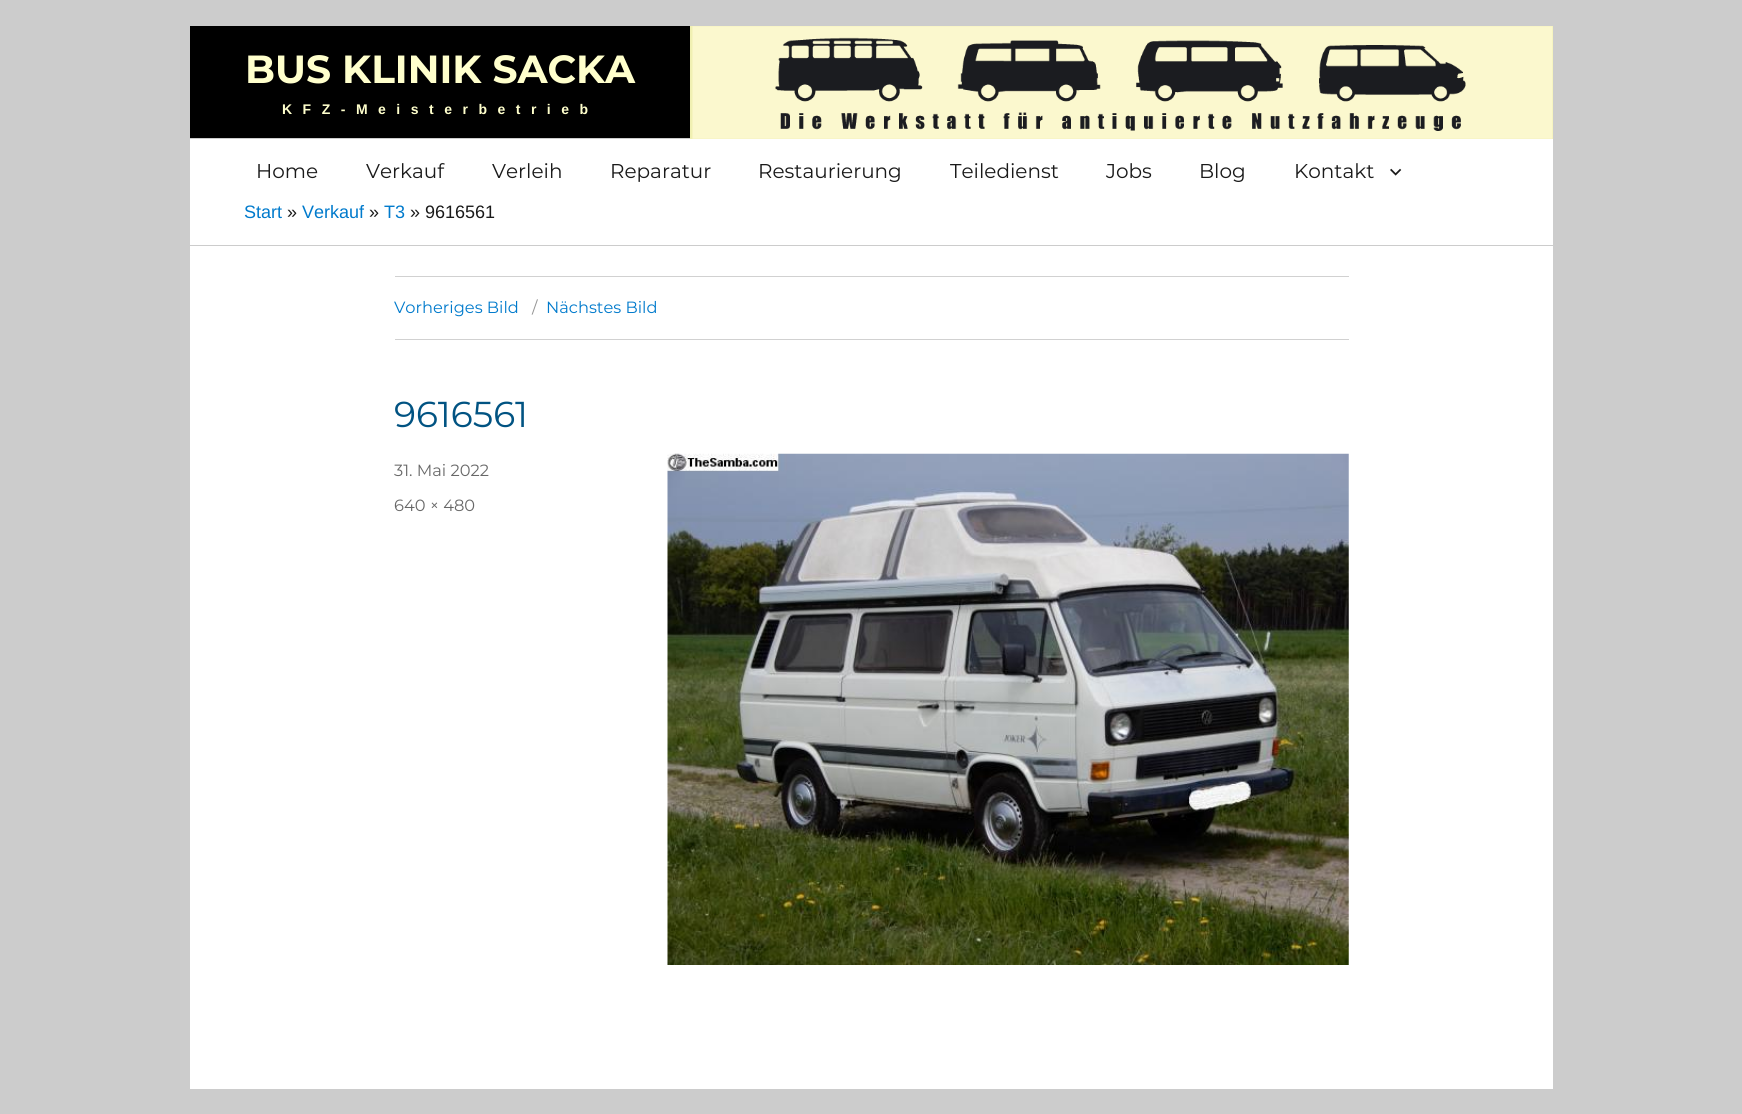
#include <cairo.h>
#include <math.h>
#include <stddef.h>

typedef struct { const char *family; double size; int italic, bold; unsigned color; } style_t;
static cairo_t *ctx;

static void ink(unsigned color) {
    cairo_set_source_rgb(ctx, (color >> 16) / 255.0, (color >> 8 & 255) / 255.0, (color & 255) / 255.0);
}

static void write(double x, double y, const char *s, const style_t *st) {
    cairo_select_font_face(ctx, st->family, st->italic ? CAIRO_FONT_SLANT_ITALIC : CAIRO_FONT_SLANT_NORMAL,
        st->bold ? CAIRO_FONT_WEIGHT_BOLD : CAIRO_FONT_WEIGHT_NORMAL);
    cairo_set_font_size(ctx, st->size);
    ink(st->color);
    cairo_move_to(ctx, x, y);
    cairo_show_text(ctx, s);
}

static void write_spaced(double x, double y, const char *s, double letter, double word) {
    cairo_move_to(ctx, x, y);
    while (*s) {
        char ch[5] = {0};
        int n = 0;
        do ch[n++] = *s++; while ((*s & 0xC0) == 0x80);
        cairo_show_text(ctx, ch);
        cairo_rel_move_to(ctx, letter + word * (*ch == ' '), 0);
    }
}

static void block(double x, double y, double w, double h, unsigned color) {
    ink(color);
    cairo_rectangle(ctx, x, y, w, h);
    cairo_fill(ctx);
}

static void paste(const char *path, double x, double y, double w, double h) {
    cairo_surface_t *image = cairo_image_surface_create_from_png(path);
    cairo_save(ctx);
    cairo_set_source_surface(ctx, image, x, y);
    cairo_rectangle(ctx, x, y, w, h);
    cairo_fill(ctx);
    cairo_restore(ctx);
    cairo_surface_destroy(image);
}

static const style_t s1 = {"Montserrat", 39.25, 0, 1, 0xffffcc};
static const style_t s2 = {"Montserrat", 20, 0, 0, 0x1a1a1a};
static const style_t s3 = {"Liberation Sans", 18, 0, 0, 0x007acc};
static const style_t s4 = {"Liberation Sans", 18, 0, 0, 0x1a1a1a};
static const style_t s5 = {"Montserrat", 16.25, 0, 0, 0x007acc};
static const style_t s6 = {"Montserrat", 16.25, 0, 0, 0x959595};
static const style_t s7 = {"Montserrat", 36, 0, 0, 0x015382};
static const style_t s8 = {"Montserrat", 16.25, 0, 0, 0x686868};

int main(void) {
    cairo_surface_t *surface = cairo_image_surface_create(CAIRO_FORMAT_RGB24, 1742, 1114);
    ctx = cairo_create(surface);
    cairo_font_options_t *options = cairo_font_options_create();
    cairo_font_options_set_hint_metrics(options, CAIRO_HINT_METRICS_OFF);
    cairo_font_options_set_hint_style(options, CAIRO_HINT_STYLE_NONE);
    cairo_set_font_options(ctx, options);
    cairo_set_miter_limit(ctx, 4);
    ink(0xcccccc);
    cairo_paint(ctx);
    block(190, 139, 1363, 950, 0xffffff);
    block(190, 245, 1363, 1, 0xcccccc);
    block(190, 26, 500, 112, 0x000000);
    write(245, 83, "BUS KLINIK SACKA", &s1);
    cairo_select_font_face(ctx, "Liberation Sans", CAIRO_FONT_SLANT_NORMAL, CAIRO_FONT_WEIGHT_BOLD);
    cairo_set_font_size(ctx, 14);
    write_spaced(282, 114, "KFZ-Meisterbetrieb", 10.5, 0);
    block(690, 26, 863, 113, 0xf0f0b2);
    paste("pic1.png", 692, 26, 861, 113);
    write(256, 178, "Home", &s2);
    write(366, 178, "Verkauf", &s2);
    write(492, 178, "Verleih", &s2);
    write(610, 178, "Reparatur", &s2);
    write(758, 178, "Restaurierung", &s2);
    write(950, 178, "Teiledienst", &s2);
    write(1106, 178, "Jobs", &s2);
    write(1199, 178, "Blog", &s2);
    write(1294, 178, "Kontakt", &s2);
    paste("pic2.png", 1390, 168, 12, 8);
    write(244, 218, "Start", &s3);
    write(287, 218, "»", &s4);
    write(302, 218, "Verkauf", &s3);
    write(369, 218, "»", &s4);
    write(384, 218, "T3", &s3);
    write(410, 218, "» 9616561", &s4);
    block(395, 276, 954, 1, 0xd1d1d1);
    block(395, 339, 954, 1, 0xd1d1d1);
    write(394, 313, "Vorheriges Bild", &s5);
    write(532, 313, "/", &s6);
    write(546, 313, "Nächstes Bild", &s5);
    write(394, 427, "9616561", &s7);
    write(394, 476, "31. Mai 2022", &s8);
    write(394, 511, "640 × 480", &s8);
    paste("pic3.png", 667, 453, 682, 512);
    cairo_surface_write_to_png(surface, "screenshot.png");
    cairo_font_options_destroy(options);
    cairo_destroy(ctx);
    cairo_surface_destroy(surface);
    return 0;
}
